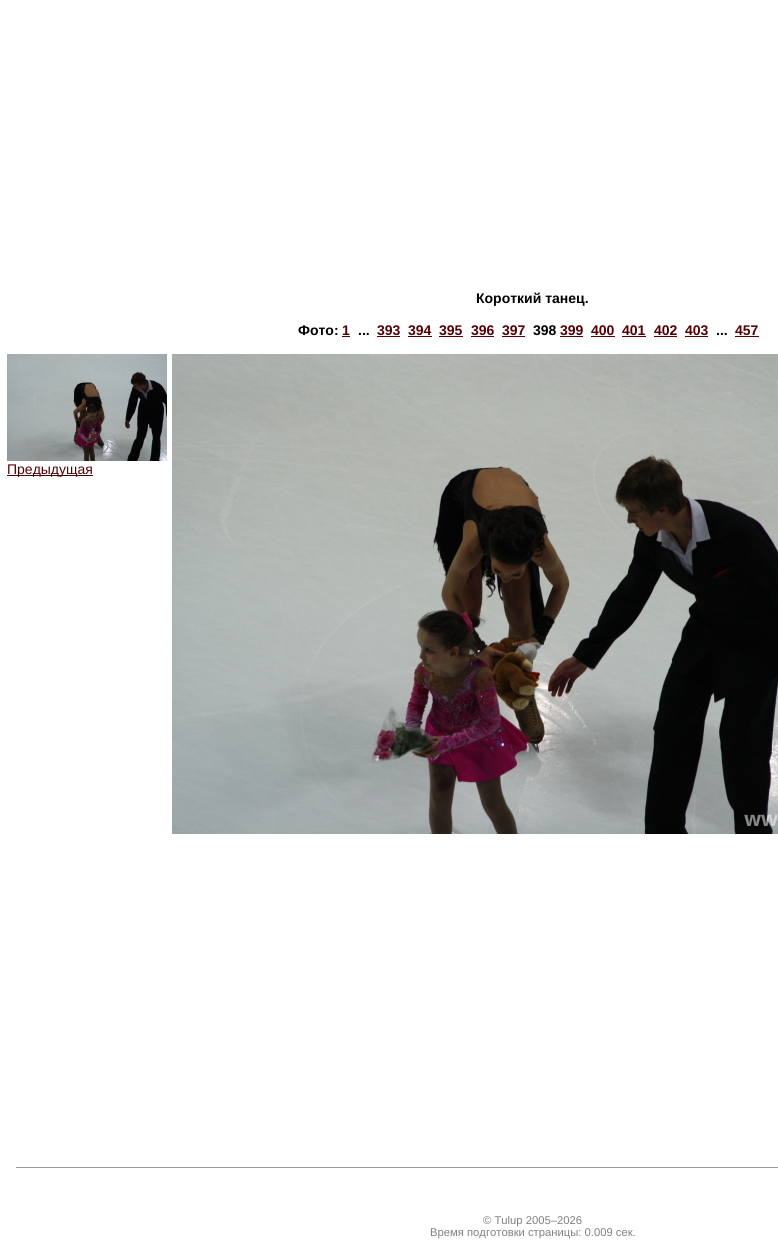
#include <cairo.h>
#include <math.h>
#include <stddef.h>

typedef struct { const char *family; double size; int italic, bold; unsigned color; } style_t;
static cairo_t *ctx;

static void ink(unsigned color) {
    cairo_set_source_rgb(ctx, (color >> 16) / 255.0, (color >> 8 & 255) / 255.0, (color & 255) / 255.0);
}

static void write(double x, double y, const char *s, const style_t *st) {
    cairo_select_font_face(ctx, st->family, st->italic ? CAIRO_FONT_SLANT_ITALIC : CAIRO_FONT_SLANT_NORMAL,
        st->bold ? CAIRO_FONT_WEIGHT_BOLD : CAIRO_FONT_WEIGHT_NORMAL);
    cairo_set_font_size(ctx, st->size);
    ink(st->color);
    cairo_move_to(ctx, x, y);
    cairo_show_text(ctx, s);
}

static void block(double x, double y, double w, double h, unsigned color) {
    ink(color);
    cairo_rectangle(ctx, x, y, w, h);
    cairo_fill(ctx);
}

static void paste(const char *path, double x, double y, double w, double h) {
    cairo_surface_t *image = cairo_image_surface_create_from_png(path);
    cairo_save(ctx);
    cairo_set_source_surface(ctx, image, x, y);
    cairo_rectangle(ctx, x, y, w, h);
    cairo_fill(ctx);
    cairo_restore(ctx);
    cairo_surface_destroy(image);
}

static const style_t s1 = {"Liberation Sans", 14, 0, 1, 0x000000};
static const style_t s2 = {"Liberation Sans", 14, 0, 1, 0x530004};
static const style_t s3 = {"Liberation Sans", 14, 0, 0, 0x530004};
static const style_t s4 = {"Liberation Sans", 11.25, 0, 0, 0x808080};

int main(void) {
    cairo_surface_t *surface = cairo_image_surface_create(CAIRO_FORMAT_RGB24, 778, 1260);
    ctx = cairo_create(surface);
    cairo_font_options_t *options = cairo_font_options_create();
    cairo_font_options_set_hint_metrics(options, CAIRO_HINT_METRICS_OFF);
    cairo_font_options_set_hint_style(options, CAIRO_HINT_STYLE_NONE);
    cairo_set_font_options(ctx, options);
    cairo_set_miter_limit(ctx, 4);
    ink(0xffffff);
    cairo_paint(ctx);
    write(476, 303, "Короткий танец.", &s1);
    write(298, 335, "Фото:", &s1);
    write(342, 335, "1", &s2);
    block(342, 336, 8, 1, 0x530004);
    write(358, 335, "...", &s1);
    write(377, 335, "393", &s2);
    block(377, 336, 23, 1, 0x530004);
    write(408, 335, "394", &s2);
    block(408, 336, 24, 1, 0x530004);
    write(439, 335, "395", &s2);
    block(439, 336, 24, 1, 0x530004);
    write(471, 335, "396", &s2);
    block(471, 336, 23, 1, 0x530004);
    write(502, 335, "397", &s2);
    block(502, 336, 23, 1, 0x530004);
    write(533, 335, "398", &s1);
    write(560, 335, "399", &s2);
    block(560, 336, 23, 1, 0x530004);
    write(591, 335, "400", &s2);
    block(591, 336, 24, 1, 0x530004);
    write(622, 335, "401", &s2);
    block(622, 336, 24, 1, 0x530004);
    write(654, 335, "402", &s2);
    block(654, 336, 23, 1, 0x530004);
    write(685, 335, "403", &s2);
    block(685, 336, 23, 1, 0x530004);
    write(716, 335, "...", &s1);
    write(735, 335, "457", &s2);
    block(735, 336, 24, 1, 0x530004);
    paste("pic1.png", 7, 354, 160, 107);
    block(7, 475, 86, 1, 0x530004);
    write(7, 474, "Предыдущая", &s3);
    paste("pic2.png", 172, 354, 606, 480);
    block(16, 1167, 762, 1, 0x999999);
    write(483, 1224, "© Tulup 2005–2026", &s4);
    write(430, 1236, "Время подготовки страницы: 0.009 сек.", &s4);
    cairo_surface_write_to_png(surface, "screenshot.png");
    cairo_font_options_destroy(options);
    cairo_destroy(ctx);
    cairo_surface_destroy(surface);
    return 0;
}
